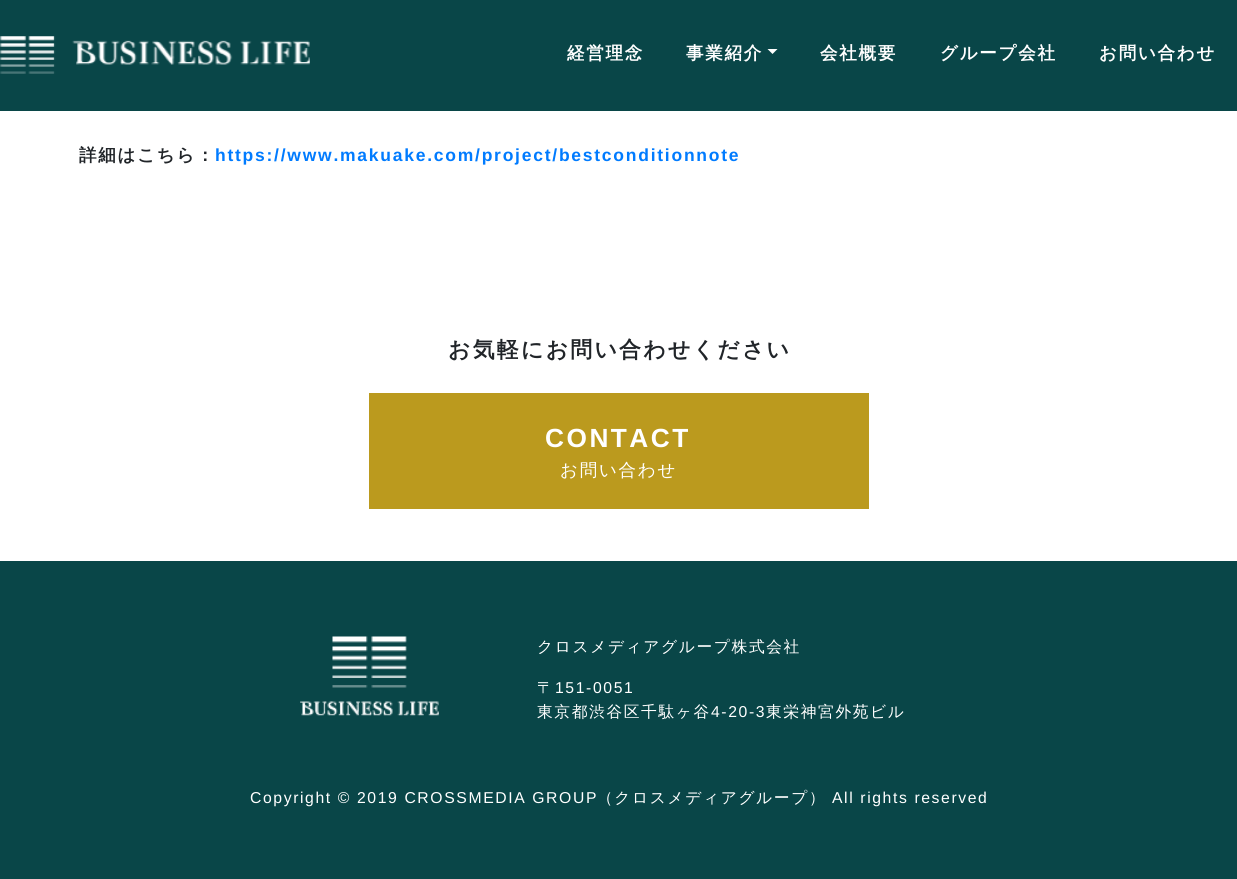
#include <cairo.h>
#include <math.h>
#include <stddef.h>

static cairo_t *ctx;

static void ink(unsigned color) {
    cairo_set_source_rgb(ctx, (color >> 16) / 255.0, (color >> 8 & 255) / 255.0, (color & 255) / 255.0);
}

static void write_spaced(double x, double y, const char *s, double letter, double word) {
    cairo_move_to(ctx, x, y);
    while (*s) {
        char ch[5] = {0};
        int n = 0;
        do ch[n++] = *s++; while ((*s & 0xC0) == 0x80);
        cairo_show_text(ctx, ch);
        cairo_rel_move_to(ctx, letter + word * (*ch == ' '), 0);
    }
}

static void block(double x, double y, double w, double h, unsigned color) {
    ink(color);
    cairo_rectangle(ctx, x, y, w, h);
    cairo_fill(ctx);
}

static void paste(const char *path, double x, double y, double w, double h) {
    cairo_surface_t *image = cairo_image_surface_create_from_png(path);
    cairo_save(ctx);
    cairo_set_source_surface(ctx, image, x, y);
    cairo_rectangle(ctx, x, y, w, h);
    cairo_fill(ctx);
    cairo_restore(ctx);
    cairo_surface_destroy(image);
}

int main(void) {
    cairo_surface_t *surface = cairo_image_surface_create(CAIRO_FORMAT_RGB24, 1237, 879);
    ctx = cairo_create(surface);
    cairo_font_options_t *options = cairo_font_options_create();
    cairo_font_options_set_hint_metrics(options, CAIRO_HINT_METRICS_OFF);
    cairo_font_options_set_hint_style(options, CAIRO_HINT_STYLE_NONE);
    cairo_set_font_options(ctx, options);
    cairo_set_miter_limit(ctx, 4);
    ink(0xffffff);
    cairo_paint(ctx);
    block(0, 0, 1237, 111, 0x094648);
    paste("pic1.png", 0, 36, 310, 38);
    cairo_select_font_face(ctx, "WenQuanYi Zen Hei", CAIRO_FONT_SLANT_NORMAL, CAIRO_FONT_WEIGHT_BOLD);
    cairo_set_font_size(ctx, 17.5);
    ink(0xffffff);
    write_spaced(567, 59, "経営理念", 1.75, 0);
    write_spaced(686, 59, "事業紹介", 1.75, 0);
    cairo_new_path(ctx);
    cairo_move_to(ctx, 767.5, 49);
    cairo_line_to(ctx, 777.5, 49);
    cairo_line_to(ctx, 772.5, 54);
    cairo_close_path(ctx);
    cairo_fill(ctx);
    write_spaced(820, 59, "会社概要", 1.75, 0);
    write_spaced(940, 59, "グループ会社", 1.75, 0);
    write_spaced(1099, 59, "お問い合わせ", 1.75, 0);
    ink(0x212529);
    write_spaced(79, 161, "詳細はこちら：", 1.75, 0);
    cairo_select_font_face(ctx, "Liberation Sans", CAIRO_FONT_SLANT_NORMAL, CAIRO_FONT_WEIGHT_BOLD);
    ink(0x007bff);
    write_spaced(215, 161, "https://www.makuake.com/project/bestconditionnote", 1.75, 0);
    cairo_select_font_face(ctx, "WenQuanYi Zen Hei", CAIRO_FONT_SLANT_NORMAL, CAIRO_FONT_WEIGHT_BOLD);
    cairo_set_font_size(ctx, 21.9);
    ink(0x212529);
    write_spaced(448, 357, "お気軽にお問い合わせください", 2.25, 0);
    block(369, 393, 500, 116, 0xbb9a1e);
    cairo_select_font_face(ctx, "Liberation Sans", CAIRO_FONT_SLANT_NORMAL, CAIRO_FONT_WEIGHT_BOLD);
    cairo_set_font_size(ctx, 26.25);
    ink(0xffffff);
    write_spaced(545, 447, "CONTACT", 2.5, 0);
    cairo_select_font_face(ctx, "WenQuanYi Zen Hei Medium", CAIRO_FONT_SLANT_NORMAL, CAIRO_FONT_WEIGHT_NORMAL);
    cairo_set_font_size(ctx, 17.5);
    write_spaced(560, 476, "お問い合わせ", 1.75, 0);
    block(0, 561, 1237, 318, 0x094648);
    paste("pic2.png", 300, 636, 139, 80);
    cairo_set_font_size(ctx, 15.75);
    ink(0xffffff);
    write_spaced(537, 652, "クロスメディアグループ株式会社", 1.6, 0);
    write_spaced(537, 693, "〒", 1.6, 0);
    cairo_select_font_face(ctx, "Liberation Sans", CAIRO_FONT_SLANT_NORMAL, CAIRO_FONT_WEIGHT_NORMAL);
    write_spaced(555, 693, "151-0051", 1.6, 0);
    cairo_select_font_face(ctx, "WenQuanYi Zen Hei Medium", CAIRO_FONT_SLANT_NORMAL, CAIRO_FONT_WEIGHT_NORMAL);
    write_spaced(537, 717, "東京都渋谷区千駄ヶ谷", 1.6, 0);
    cairo_select_font_face(ctx, "Liberation Sans", CAIRO_FONT_SLANT_NORMAL, CAIRO_FONT_WEIGHT_NORMAL);
    write_spaced(711, 717, "4-20-3", 1.6, 0);
    cairo_select_font_face(ctx, "WenQuanYi Zen Hei Medium", CAIRO_FONT_SLANT_NORMAL, CAIRO_FONT_WEIGHT_NORMAL);
    write_spaced(766, 717, "東栄神宮外苑ビル", 1.6, 0);
    cairo_select_font_face(ctx, "Liberation Sans", CAIRO_FONT_SLANT_NORMAL, CAIRO_FONT_WEIGHT_NORMAL);
    write_spaced(250, 803, "Copyright © 2019 CROSSMEDIA GROUP", 1.6, 0);
    cairo_select_font_face(ctx, "WenQuanYi Zen Hei Medium", CAIRO_FONT_SLANT_NORMAL, CAIRO_FONT_WEIGHT_NORMAL);
    write_spaced(597, 803, "（クロスメディアグループ）", 1.6, 0);
    cairo_select_font_face(ctx, "Liberation Sans", CAIRO_FONT_SLANT_NORMAL, CAIRO_FONT_WEIGHT_NORMAL);
    write_spaced(832, 803, "All rights reserved", 1.6, 0);
    cairo_surface_write_to_png(surface, "screenshot.png");
    cairo_font_options_destroy(options);
    cairo_destroy(ctx);
    cairo_surface_destroy(surface);
    return 0;
}
